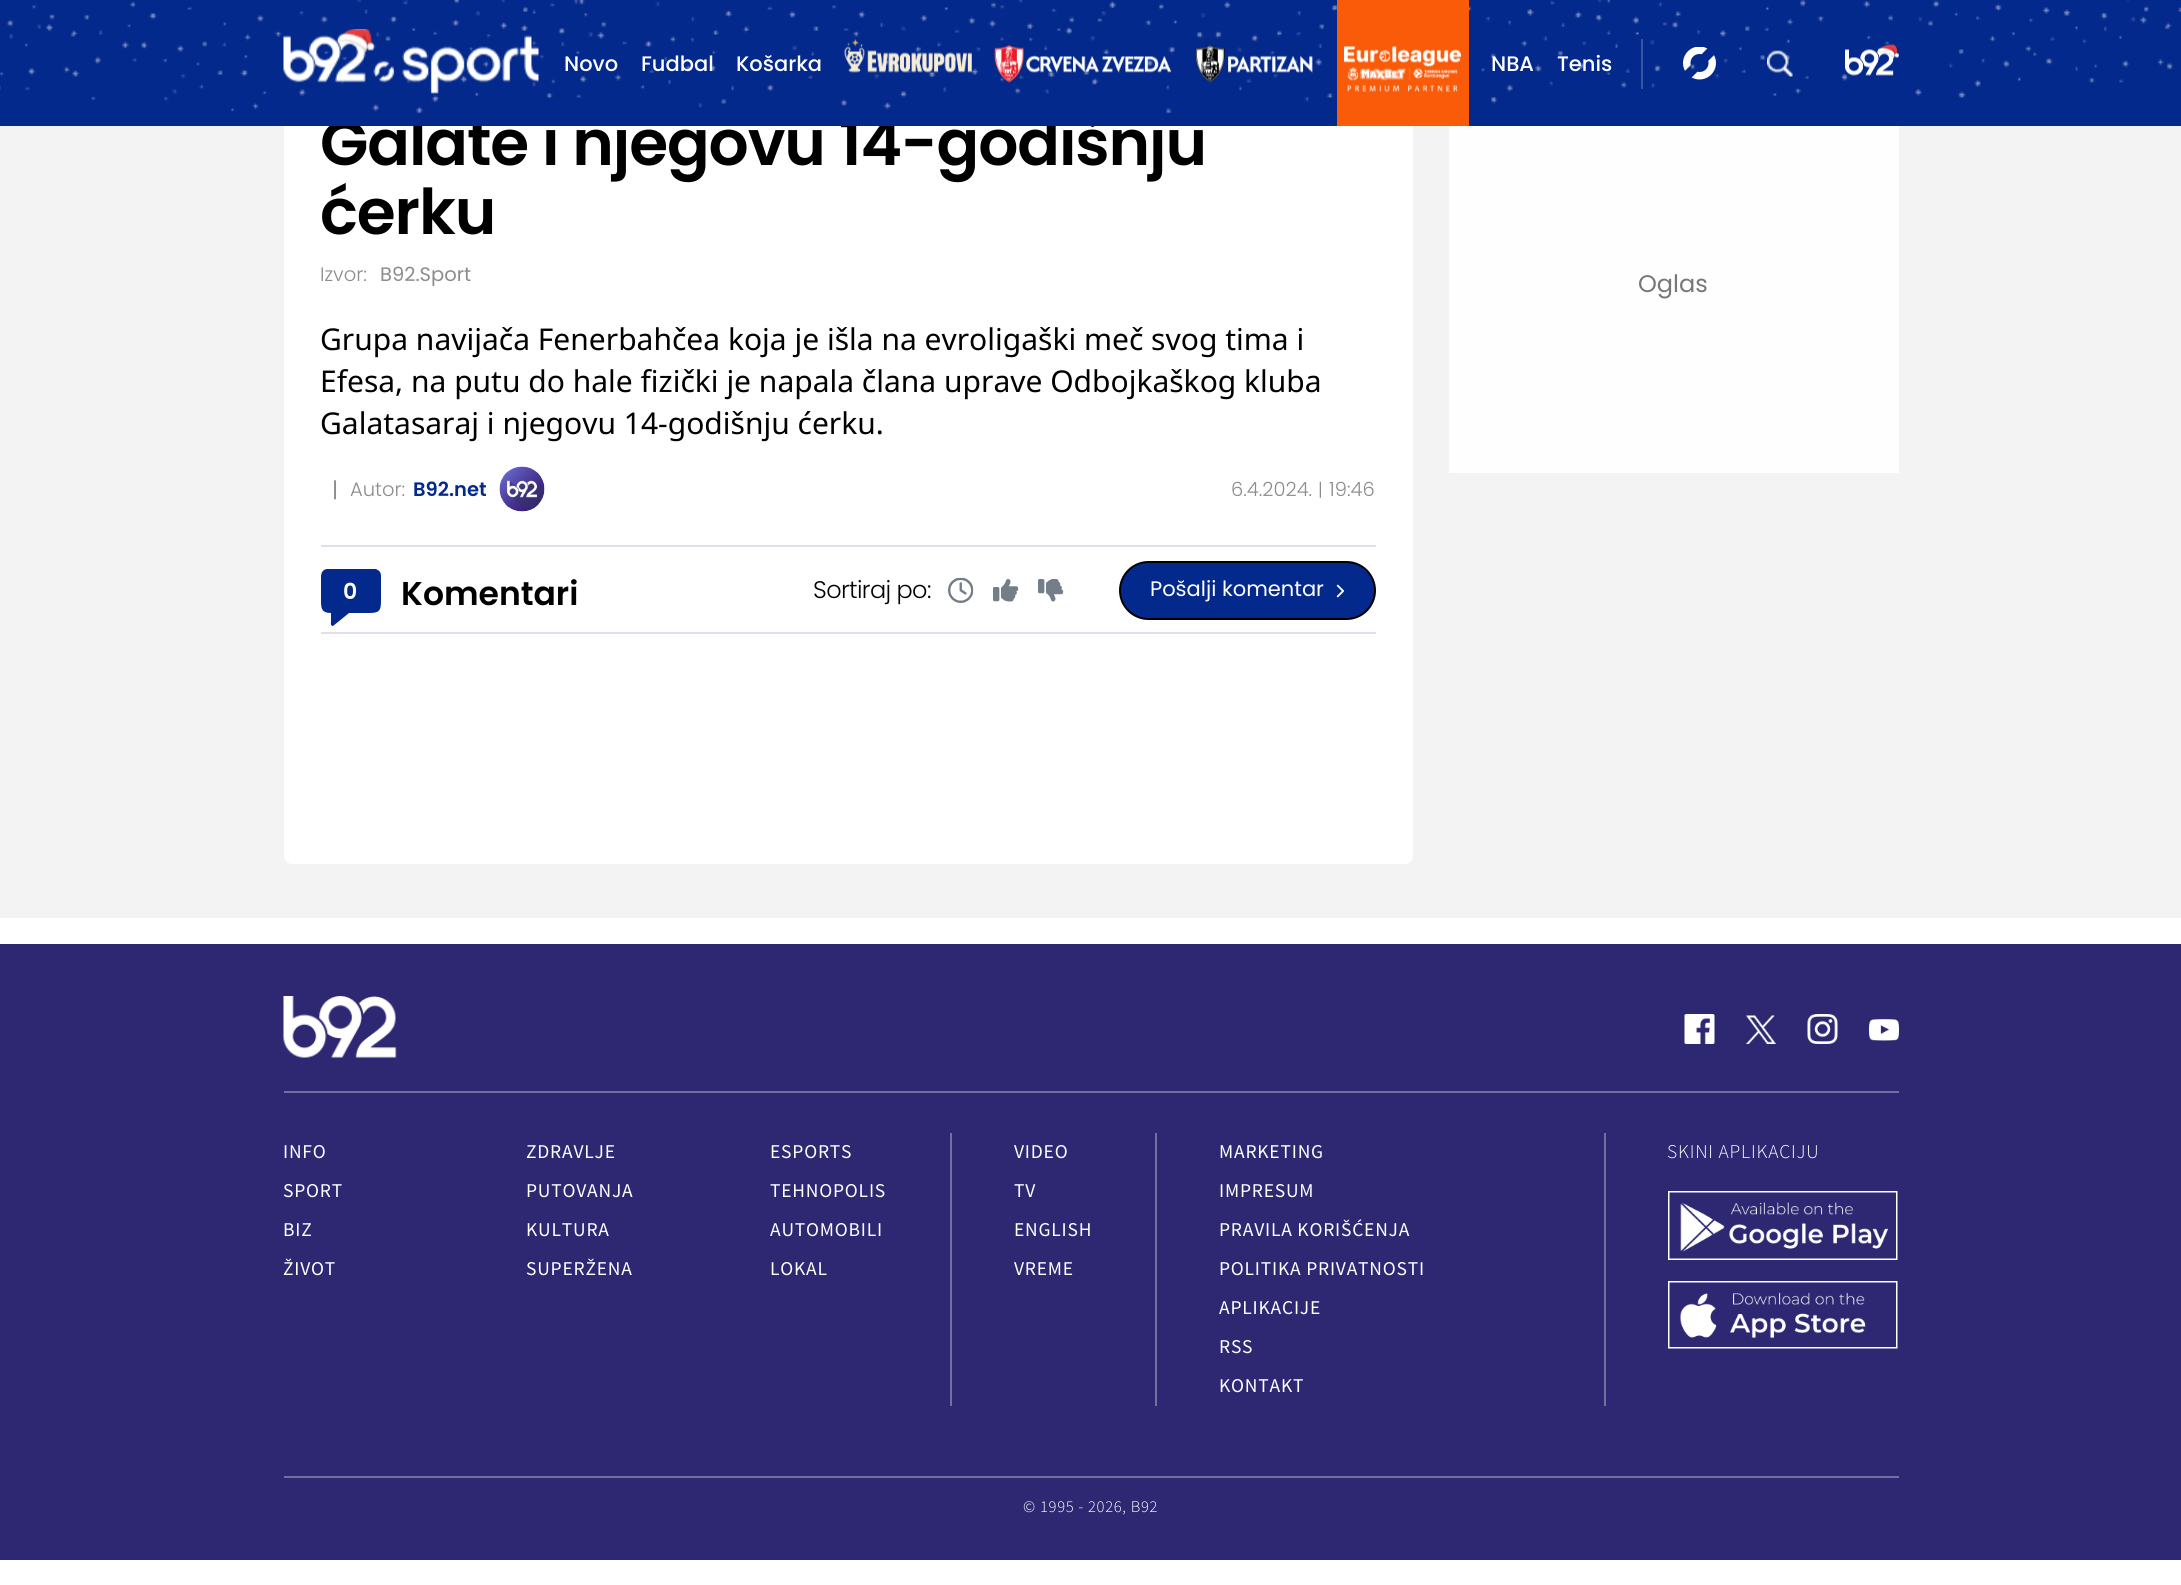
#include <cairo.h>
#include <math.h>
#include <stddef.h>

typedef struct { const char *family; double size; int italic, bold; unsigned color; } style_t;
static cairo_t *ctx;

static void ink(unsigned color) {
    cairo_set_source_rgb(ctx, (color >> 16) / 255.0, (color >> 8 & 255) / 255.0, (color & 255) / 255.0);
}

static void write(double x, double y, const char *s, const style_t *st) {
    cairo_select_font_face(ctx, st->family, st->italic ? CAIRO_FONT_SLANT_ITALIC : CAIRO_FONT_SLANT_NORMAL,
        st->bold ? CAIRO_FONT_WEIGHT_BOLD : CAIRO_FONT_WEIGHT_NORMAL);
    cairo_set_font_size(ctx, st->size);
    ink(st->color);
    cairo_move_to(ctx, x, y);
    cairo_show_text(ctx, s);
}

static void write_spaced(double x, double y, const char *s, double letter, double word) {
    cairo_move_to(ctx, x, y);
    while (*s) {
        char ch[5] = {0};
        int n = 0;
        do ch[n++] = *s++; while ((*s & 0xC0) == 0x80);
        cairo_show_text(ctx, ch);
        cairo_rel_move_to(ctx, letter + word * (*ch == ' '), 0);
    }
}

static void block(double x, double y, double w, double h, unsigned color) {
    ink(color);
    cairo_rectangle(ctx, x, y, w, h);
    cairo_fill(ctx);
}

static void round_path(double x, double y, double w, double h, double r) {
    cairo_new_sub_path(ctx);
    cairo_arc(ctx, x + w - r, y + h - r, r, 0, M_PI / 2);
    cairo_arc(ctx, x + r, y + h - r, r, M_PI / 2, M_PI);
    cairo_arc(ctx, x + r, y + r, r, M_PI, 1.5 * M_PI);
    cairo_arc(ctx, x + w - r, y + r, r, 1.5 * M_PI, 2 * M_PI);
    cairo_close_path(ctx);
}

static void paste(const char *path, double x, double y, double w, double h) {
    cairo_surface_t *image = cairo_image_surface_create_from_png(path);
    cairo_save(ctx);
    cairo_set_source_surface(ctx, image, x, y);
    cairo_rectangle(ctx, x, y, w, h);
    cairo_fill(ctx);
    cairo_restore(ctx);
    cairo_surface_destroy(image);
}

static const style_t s1 = {"Poppins Medium", 21, 0, 0, 0xffffff};
static const style_t s2 = {"Poppins Light", 19.5, 0, 0, 0x8c8c8c};
static const style_t s3 = {"Poppins", 19.5, 0, 0, 0x8c8c8c};
static const style_t s4 = {"Noto Sans", 30, 0, 0, 0x000000};
static const style_t s5 = {"Poppins", 21, 0, 0, 0x8c8c8c};
static const style_t s6 = {"Poppins SemiBold", 19.5, 0, 0, 0x03298c};
static const style_t s7 = {"Poppins Light", 18, 0, 0, 0x8c8c8c};
static const style_t s8 = {"Poppins SemiBold", 22, 0, 0, 0xffffff};
static const style_t s9 = {"Poppins SemiBold", 33, 0, 0, 0x000000};
static const style_t s10 = {"Poppins", 21, 0, 0, 0xffffff};
static const style_t s11 = {"Poppins", 24, 0, 0, 0x777777};

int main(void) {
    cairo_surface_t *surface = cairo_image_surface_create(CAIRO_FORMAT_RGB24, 2181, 1585);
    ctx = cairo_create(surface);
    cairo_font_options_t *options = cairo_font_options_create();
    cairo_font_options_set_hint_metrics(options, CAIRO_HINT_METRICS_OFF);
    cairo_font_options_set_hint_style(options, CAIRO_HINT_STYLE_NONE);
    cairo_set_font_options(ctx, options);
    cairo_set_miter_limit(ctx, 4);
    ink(0xffffff);
    cairo_paint(ctx);
    block(0, 126, 2181, 792, 0xf3f3f3);
    ink(0xffffff);
    round_path(284, -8, 1129, 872, 8);
    cairo_fill(ctx);
    cairo_select_font_face(ctx, "Poppins SemiBold", CAIRO_FONT_SLANT_NORMAL, CAIRO_FONT_WEIGHT_NORMAL);
    cairo_set_font_size(ctx, 63);
    ink(0x000000);
    write_spaced(320, 165, "Galate i njegovu 14-godišnju", -1.1, 0);
    block(0, 0, 2181, 126, 0x03298c);
    paste("pic1.png", 0, 0, 2181, 114);
    paste("pic2.png", 283, 29, 256, 65);
    write(564, 71, "Novo", &s1);
    write(641, 71, "Fudbal", &s1);
    write(736, 71, "Košarka", &s1);
    paste("pic3.png", 844, 38, 128, 35);
    paste("pic4.png", 994, 44, 178, 39);
    paste("pic5.png", 1195, 44, 118, 39);
    block(1337, 0, 132, 126, 0xfa5b09);
    paste("pic6.png", 1344, 46, 117, 46);
    write(1491, 71, "NBA", &s1);
    write(1557, 71, "Tenis", &s1);
    block(1641, 39, 2, 50, 0x3554a3);
    paste("pic7.png", 1683, 47, 33, 33);
    paste("pic8.png", 1767, 50, 26, 27);
    paste("pic9.png", 1845, 44, 54, 32);
    cairo_select_font_face(ctx, "Poppins SemiBold", CAIRO_FONT_SLANT_NORMAL, CAIRO_FONT_WEIGHT_NORMAL);
    cairo_set_font_size(ctx, 63);
    ink(0x000000);
    write_spaced(320, 234, "ćerku", -1.1, 0);
    write(320, 281, "Izvor:", &s2);
    write(380, 281, "B92.Sport", &s3);
    write(320, 350, "Grupa navijača Fenerbahčea koja je išla na evroligaški meč svog tima i", &s4);
    write(320, 392, "Efesa, na putu do hale fizički je napala člana uprave Odbojkaškog kluba", &s4);
    write(320, 434, "Galatasaraj i njegovu 14-godišnju ćerku.", &s4);
    write(332, 497, "|", &s5);
    write(350, 496, "Autor:", &s2);
    write(413, 496, "B92.net", &s6);
    paste("pic10.png", 499, 466, 46, 46);
    write(1231, 496, "6.4.2024.", &s2);
    write(1318, 496, "|", &s7);
    write(1329, 496, "19:46", &s2);
    block(321, 545, 1055, 2, 0xe0dfea);
    block(321, 632, 1055, 2, 0xe0dfea);
    cairo_save(ctx);
    cairo_rectangle(ctx, 321, 569, 60, 58);
    cairo_clip(ctx);
    ink(0x03298c);
    cairo_new_path(ctx);
    cairo_move_to(ctx, 381, 576);
    cairo_curve_to(ctx, 381, 568, 372, 568, 366, 568);
    cairo_line_to(ctx, 327, 569);
    cairo_curve_to(ctx, 319, 570, 321, 580, 321, 586);
    cairo_line_to(ctx, 321, 601);
    cairo_curve_to(ctx, 321, 609, 322, 613, 331, 613);
    cairo_line_to(ctx, 331, 621);
    cairo_curve_to(ctx, 331, 622, 330, 626, 333, 626);
    cairo_line_to(ctx, 349, 613);
    cairo_line_to(ctx, 369, 613);
    cairo_curve_to(ctx, 379, 613, 381, 611, 381, 601);
    cairo_close_path(ctx);
    cairo_fill(ctx);
    cairo_restore(ctx);
    write(343, 599, "0", &s8);
    write(401, 605, "Komentari", &s9);
    cairo_select_font_face(ctx, "Poppins Light", CAIRO_FONT_SLANT_NORMAL, CAIRO_FONT_WEIGHT_NORMAL);
    cairo_set_font_size(ctx, 24);
    write_spaced(813, 598, "Sortiraj po:", -0.6, 0);
    paste("pic11.png", 948, 577, 26, 26);
    paste("pic12.png", 993, 579, 26, 23);
    paste("pic13.png", 1038, 579, 26, 23);
    ink(0x03298c);
    round_path(1120, 562, 255, 57, 28.5);
    cairo_fill_preserve(ctx);
    ink(0x000000);
    cairo_stroke(ctx);
    write(1150, 596, "Pošalji komentar", &s10);
    paste("pic14.png", 1336, 584, 8, 14);
    block(1449, 126, 450, 347, 0xfefefe);
    write(1638, 292, "Oglas", &s11);
    block(0, 944, 2181, 616, 0x2e2873);
    paste("pic15.png", 283, 996, 114, 62);
    paste("pic16.png", 1684, 1014, 31, 30);
    paste("pic17.png", 1746, 1015, 30, 29);
    paste("pic18.png", 1807, 1014, 31, 30);
    paste("pic19.png", 1869, 1019, 30, 22);
    block(284, 1091, 1615, 2, 0x736fa1);
    block(284, 1476, 1615, 2, 0x736fa1);
    block(950, 1133, 2, 273, 0x736fa1);
    cairo_select_font_face(ctx, "Source Sans Pro", CAIRO_FONT_SLANT_NORMAL, CAIRO_FONT_WEIGHT_NORMAL);
    cairo_set_font_size(ctx, 19.5);
    ink(0xffffff);
    write_spaced(283, 1158, "INFO", 0.8, 0);
    write_spaced(526, 1158, "ZDRAVLJE", 0.8, 0);
    write_spaced(770, 1158, "ESPORTS", 0.8, 0);
    write_spaced(283, 1197, "SPORT", 0.8, 0);
    write_spaced(526, 1197, "PUTOVANJA", 0.8, 0);
    write_spaced(770, 1197, "TEHNOPOLIS", 0.8, 0);
    write_spaced(283, 1236, "BIZ", 0.8, 0);
    write_spaced(526, 1236, "KULTURA", 0.8, 0);
    write_spaced(770, 1236, "AUTOMOBILI", 0.8, 0);
    write_spaced(283, 1275, "ŽIVOT", 0.8, 0);
    write_spaced(526, 1275, "SUPERŽENA", 0.8, 0);
    write_spaced(770, 1275, "LOKAL", 0.8, 0);
    block(1155, 1133, 2, 273, 0x736fa1);
    ink(0xffffff);
    write_spaced(1014, 1158, "VIDEO", 0.8, 0);
    write_spaced(1014, 1197, "TV", 0.8, 0);
    write_spaced(1014, 1236, "ENGLISH", 0.8, 0);
    write_spaced(1014, 1275, "VREME", 0.8, 0);
    write_spaced(1219, 1158, "MARKETING", 0.8, 0);
    write_spaced(1219, 1197, "IMPRESUM", 0.8, 0);
    write_spaced(1219, 1236, "PRAVILA KORIŠĆENJA", 0.8, 0);
    write_spaced(1219, 1275, "POLITIKA PRIVATNOSTI", 0.8, 0);
    write_spaced(1219, 1314, "APLIKACIJE", 0.8, 0);
    write_spaced(1219, 1353, "RSS", 0.8, 0);
    write_spaced(1219, 1392, "KONTAKT", 0.8, 0);
    block(1604, 1133, 2, 273, 0x736fa1);
    cairo_select_font_face(ctx, "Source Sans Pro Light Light", CAIRO_FONT_SLANT_NORMAL, CAIRO_FONT_WEIGHT_NORMAL);
    ink(0xffffff);
    write_spaced(1667, 1158, "SKINI APLIKACIJU", 0.8, 0);
    paste("pic20.png", 1668, 1191, 230, 69);
    paste("pic21.png", 1668, 1281, 230, 68);
    cairo_set_font_size(ctx, 16.5);
    write_spaced(1023, 1512, "© 1995 - 2026, B92", 0.7, 0);
    cairo_surface_write_to_png(surface, "screenshot.png");
    cairo_font_options_destroy(options);
    cairo_destroy(ctx);
    cairo_surface_destroy(surface);
    return 0;
}
